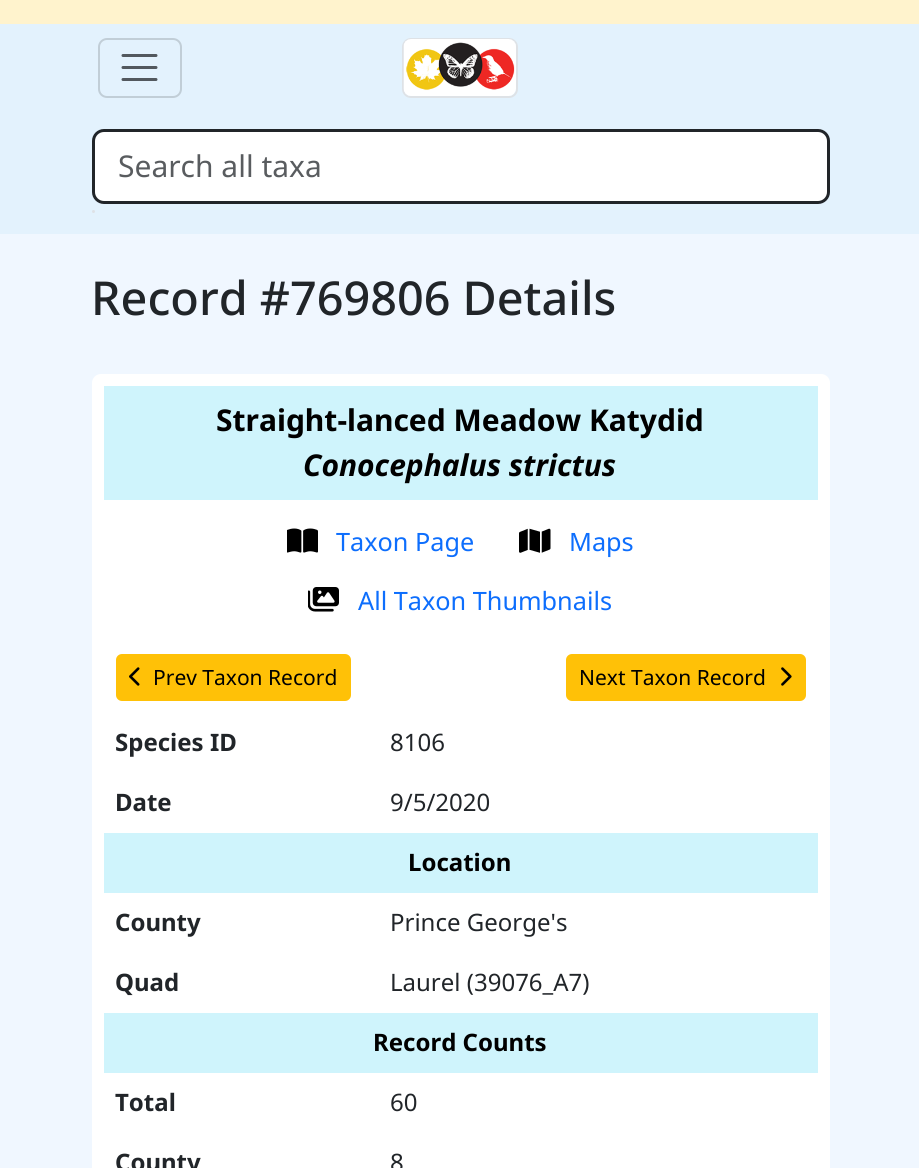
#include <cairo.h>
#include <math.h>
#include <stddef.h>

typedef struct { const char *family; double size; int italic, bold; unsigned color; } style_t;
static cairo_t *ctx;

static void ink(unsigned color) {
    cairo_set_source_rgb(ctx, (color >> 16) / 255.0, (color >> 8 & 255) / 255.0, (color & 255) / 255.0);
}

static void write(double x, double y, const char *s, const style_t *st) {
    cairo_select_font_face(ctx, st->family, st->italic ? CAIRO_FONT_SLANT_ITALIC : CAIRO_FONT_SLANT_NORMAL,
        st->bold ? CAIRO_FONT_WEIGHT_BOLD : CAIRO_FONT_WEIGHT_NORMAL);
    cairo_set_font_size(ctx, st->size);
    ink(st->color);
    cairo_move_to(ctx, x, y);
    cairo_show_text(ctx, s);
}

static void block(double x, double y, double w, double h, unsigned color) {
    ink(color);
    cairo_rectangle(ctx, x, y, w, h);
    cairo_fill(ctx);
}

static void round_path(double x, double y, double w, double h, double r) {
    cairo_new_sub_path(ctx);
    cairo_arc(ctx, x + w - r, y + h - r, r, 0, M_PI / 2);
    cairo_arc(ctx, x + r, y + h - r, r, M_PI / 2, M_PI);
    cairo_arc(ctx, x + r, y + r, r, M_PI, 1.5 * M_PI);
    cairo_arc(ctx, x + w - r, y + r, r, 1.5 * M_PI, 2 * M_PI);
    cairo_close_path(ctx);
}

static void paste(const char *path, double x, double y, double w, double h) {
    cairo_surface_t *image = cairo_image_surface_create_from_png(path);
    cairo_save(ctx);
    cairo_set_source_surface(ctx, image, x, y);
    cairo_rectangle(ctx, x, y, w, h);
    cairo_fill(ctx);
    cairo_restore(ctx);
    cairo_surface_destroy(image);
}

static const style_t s1 = {"Noto Sans", 30, 0, 0, 0x595c5f};
static const style_t s2 = {"Noto Sans Medium", 46.75, 0, 0, 0x212529};
static const style_t s3 = {"Noto Sans", 30, 0, 1, 0x000000};
static const style_t s4 = {"Noto Sans", 30, 1, 1, 0x000000};
static const style_t s5 = {"Noto Sans", 25.25, 0, 0, 0x0d6efd};
static const style_t s6 = {"Noto Sans", 21, 0, 0, 0x000000};
static const style_t s7 = {"Noto Sans", 24, 0, 1, 0x212529};
static const style_t s8 = {"Noto Sans", 24, 0, 0, 0x212529};
static const style_t s9 = {"Noto Sans", 24, 0, 1, 0x000000};

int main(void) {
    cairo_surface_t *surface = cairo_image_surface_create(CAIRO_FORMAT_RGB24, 919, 1168);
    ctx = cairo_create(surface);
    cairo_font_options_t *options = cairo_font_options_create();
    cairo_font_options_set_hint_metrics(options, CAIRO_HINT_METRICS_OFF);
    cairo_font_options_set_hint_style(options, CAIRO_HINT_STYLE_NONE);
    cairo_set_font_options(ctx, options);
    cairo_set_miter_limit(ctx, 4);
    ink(0xfff3cd);
    cairo_paint(ctx);
    block(0, 24, 919, 210, 0xe3f2fd);
    round_path(99, 39, 82, 58, 8);
    ink(0xc1ced7);
    cairo_stroke(ctx);
    cairo_new_path(ctx);
    cairo_move_to(ctx, 123, 55.5);
    cairo_line_to(ctx, 156, 55.5);
    cairo_move_to(ctx, 123, 67.5);
    cairo_line_to(ctx, 156, 67.5);
    cairo_move_to(ctx, 123, 79.5);
    cairo_line_to(ctx, 156, 79.5);
    ink(0x52585e);
    cairo_set_line_width(ctx, 3);
    cairo_set_line_cap(ctx, CAIRO_LINE_CAP_ROUND);
    cairo_stroke(ctx);
    round_path(403, 39, 114, 58, 8);
    ink(0xdee2e6);
    cairo_set_line_width(ctx, 2);
    cairo_set_line_cap(ctx, CAIRO_LINE_CAP_BUTT);
    cairo_stroke(ctx);
    paste("pic1.png", 403, 39, 113, 57);
    ink(0xffffff);
    round_path(93.5, 130.5, 735, 72, 10.5);
    cairo_fill_preserve(ctx);
    ink(0x212529);
    cairo_set_line_width(ctx, 3);
    cairo_stroke(ctx);
    write(118, 177, "Search all taxa", &s1);
    ink(0xdee2e6);
    cairo_new_path(ctx);
    cairo_arc(ctx, 93.5, 211.5, 1.5, 0, 2 * M_PI);
    cairo_fill(ctx);
    block(0, 234, 919, 934, 0xf0f7ff);
    write(91, 315, "Record #769806 Details", &s2);
    ink(0xffffff);
    round_path(92, 374, 738, 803, 9);
    cairo_fill(ctx);
    block(104, 386, 714, 114, 0xcff4fc);
    write(216, 431, "Straight-lanced Meadow Katydid", &s3);
    write(303, 476, "Conocephalus strictus", &s4);
    paste("pic2.png", 287, 528, 31, 25);
    write(336, 551, "Taxon Page", &s5);
    paste("pic3.png", 519, 528, 32, 25);
    write(569, 551, "Maps", &s5);
    paste("pic4.png", 308, 587, 31, 25);
    write(358, 610, "All Taxon Thumbnails", &s5);
    ink(0xffc107);
    round_path(117, 655, 233, 45, 5);
    cairo_fill_preserve(ctx);
    cairo_set_line_width(ctx, 2);
    cairo_stroke(ctx);
    paste("pic5.png", 129, 667, 11, 19);
    write(153, 685, "Prev Taxon Record", &s6);
    ink(0xffc107);
    round_path(567, 655, 238, 45, 5);
    cairo_fill_preserve(ctx);
    cairo_stroke(ctx);
    write(579, 685, "Next Taxon Record", &s6);
    paste("pic6.png", 781, 667, 11, 19);
    write(115, 751, "Species ID", &s7);
    write(390, 751, "8106", &s8);
    write(115, 811, "Date", &s7);
    write(390, 811, "9/5/2020", &s8);
    block(104, 833, 714, 60, 0xcff4fc);
    write(408, 871, "Location", &s9);
    write(115, 931, "County", &s7);
    write(390, 931, "Prince George's", &s8);
    write(115, 991, "Quad", &s7);
    write(390, 991, "Laurel (39076_A7)", &s8);
    block(104, 1013, 714, 60, 0xcff4fc);
    write(373, 1051, "Record Counts", &s9);
    write(115, 1111, "Total", &s7);
    write(390, 1111, "60", &s8);
    write(115, 1171, "County", &s7);
    write(390, 1171, "8", &s8);
    cairo_surface_write_to_png(surface, "screenshot.png");
    cairo_font_options_destroy(options);
    cairo_destroy(ctx);
    cairo_surface_destroy(surface);
    return 0;
}
